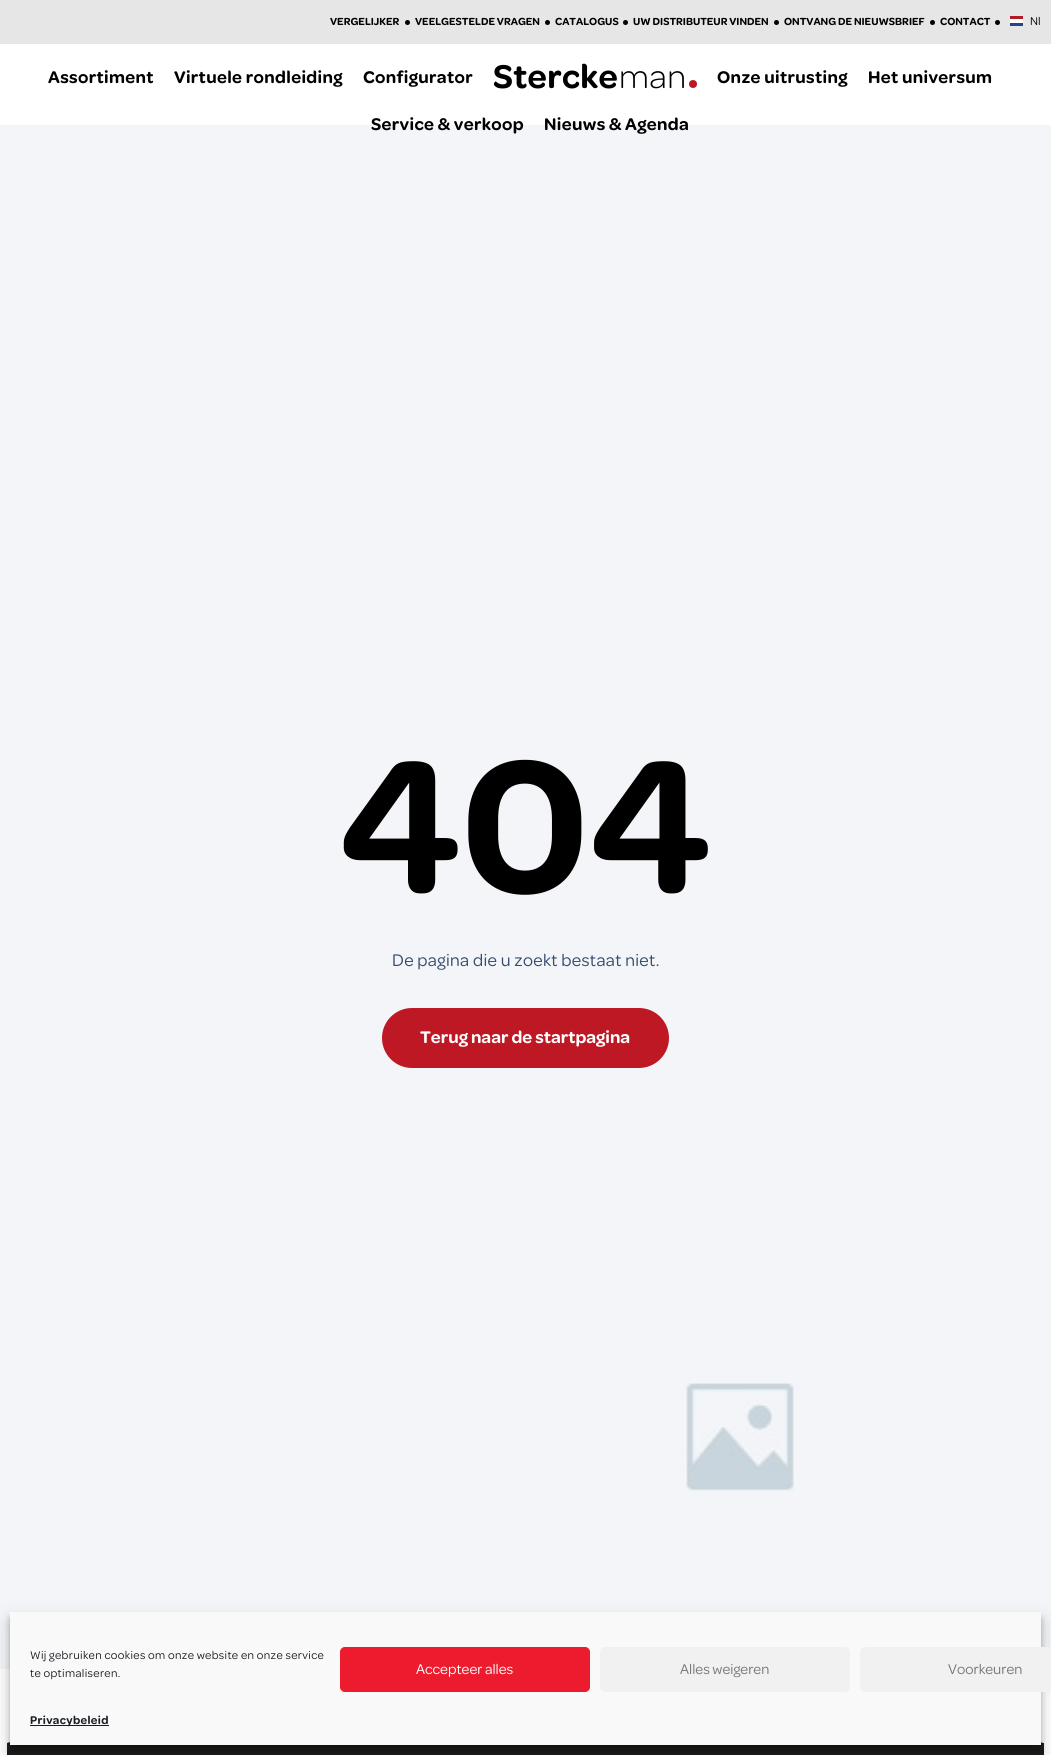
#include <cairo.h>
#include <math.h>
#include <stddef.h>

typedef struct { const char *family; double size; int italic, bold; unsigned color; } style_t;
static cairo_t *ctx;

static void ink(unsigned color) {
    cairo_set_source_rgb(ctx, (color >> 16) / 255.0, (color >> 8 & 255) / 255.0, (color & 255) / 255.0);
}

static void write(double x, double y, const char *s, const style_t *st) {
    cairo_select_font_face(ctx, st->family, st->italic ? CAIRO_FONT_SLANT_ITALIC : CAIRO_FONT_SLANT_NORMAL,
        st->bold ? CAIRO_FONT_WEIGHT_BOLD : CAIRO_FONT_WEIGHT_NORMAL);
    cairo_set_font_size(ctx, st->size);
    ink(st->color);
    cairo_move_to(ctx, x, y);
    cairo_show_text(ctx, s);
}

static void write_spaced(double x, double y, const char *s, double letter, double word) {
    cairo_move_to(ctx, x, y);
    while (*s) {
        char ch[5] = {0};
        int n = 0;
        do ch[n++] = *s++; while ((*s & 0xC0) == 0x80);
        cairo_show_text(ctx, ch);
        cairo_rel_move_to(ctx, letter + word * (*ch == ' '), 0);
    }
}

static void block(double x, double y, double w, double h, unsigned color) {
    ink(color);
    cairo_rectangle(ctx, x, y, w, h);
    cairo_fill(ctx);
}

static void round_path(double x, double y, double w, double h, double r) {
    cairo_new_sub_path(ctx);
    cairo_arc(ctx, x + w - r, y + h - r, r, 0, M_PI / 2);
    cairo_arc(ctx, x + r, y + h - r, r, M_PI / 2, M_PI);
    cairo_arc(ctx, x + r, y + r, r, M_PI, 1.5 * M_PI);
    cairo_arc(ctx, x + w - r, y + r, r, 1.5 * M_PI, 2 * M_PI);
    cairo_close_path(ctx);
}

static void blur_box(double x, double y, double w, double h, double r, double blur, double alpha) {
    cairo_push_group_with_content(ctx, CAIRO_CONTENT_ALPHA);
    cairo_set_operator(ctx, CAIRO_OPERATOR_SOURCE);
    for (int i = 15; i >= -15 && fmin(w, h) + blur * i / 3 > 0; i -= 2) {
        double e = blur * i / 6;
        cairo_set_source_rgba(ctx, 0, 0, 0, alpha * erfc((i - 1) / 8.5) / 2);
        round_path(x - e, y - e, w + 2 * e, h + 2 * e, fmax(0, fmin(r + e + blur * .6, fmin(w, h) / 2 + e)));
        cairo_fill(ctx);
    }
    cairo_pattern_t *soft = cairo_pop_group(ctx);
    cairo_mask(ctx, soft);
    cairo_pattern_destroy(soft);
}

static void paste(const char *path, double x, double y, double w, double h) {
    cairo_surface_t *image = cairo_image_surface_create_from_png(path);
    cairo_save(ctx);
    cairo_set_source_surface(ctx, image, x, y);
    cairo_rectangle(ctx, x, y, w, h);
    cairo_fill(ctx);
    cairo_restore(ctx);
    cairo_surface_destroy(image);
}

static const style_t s1 = {"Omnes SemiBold", 11, 0, 0, 0x000000};
static const style_t s2 = {"Omnes", 12, 0, 0, 0x000000};
static const style_t s3 = {"Omnes SemiBold", 200, 0, 0, 0x000000};
static const style_t s4 = {"Omnes SemiBold", 18, 0, 0, 0xffffff};
static const style_t s5 = {"Omnes", 15, 0, 0, 0xffffff};
static const style_t s6 = {"Omnes", 15, 0, 0, 0x777777};

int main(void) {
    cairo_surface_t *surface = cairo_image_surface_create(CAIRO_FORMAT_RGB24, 1051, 1755);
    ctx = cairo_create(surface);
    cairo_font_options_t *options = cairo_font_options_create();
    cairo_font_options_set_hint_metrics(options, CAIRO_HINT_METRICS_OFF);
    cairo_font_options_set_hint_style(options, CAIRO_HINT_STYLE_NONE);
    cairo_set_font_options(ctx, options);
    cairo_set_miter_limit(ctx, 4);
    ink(0xffffff);
    cairo_paint(ctx);
    block(0, 0, 1051, 44, 0xe6e6e6);
    write(330, 25, "VERGELIJKER", &s1);
    cairo_new_path(ctx);
    cairo_arc(ctx, 407.5, 22.5, 2.5, 0, 2 * M_PI);
    cairo_fill(ctx);
    write(415, 25, "VEELGESTELDE VRAGEN", &s1);
    cairo_new_path(ctx);
    cairo_arc(ctx, 547.5, 22.5, 2.5, 0, 2 * M_PI);
    cairo_fill(ctx);
    write(555, 25, "CATALOGUS", &s1);
    cairo_new_path(ctx);
    cairo_arc(ctx, 625.5, 22.5, 2.5, 0, 2 * M_PI);
    cairo_fill(ctx);
    write(633, 25, "UW DISTRIBUTEUR VINDEN", &s1);
    cairo_new_path(ctx);
    cairo_arc(ctx, 776.5, 22.5, 2.5, 0, 2 * M_PI);
    cairo_fill(ctx);
    write(784, 25, "ONTVANG DE NIEUWSBRIEF", &s1);
    cairo_new_path(ctx);
    cairo_arc(ctx, 932.5, 22.5, 2.5, 0, 2 * M_PI);
    cairo_fill(ctx);
    write(940, 25, "CONTACT", &s1);
    cairo_new_path(ctx);
    cairo_arc(ctx, 997.5, 22.5, 2.5, 0, 2 * M_PI);
    cairo_fill(ctx);
    block(1010, 16, 13, 3, 0xae1c28);
    block(1010, 19, 13, 4, 0xffffff);
    block(1010, 23, 13, 3, 0x21468b);
    write(1030, 25, "Nl", &s2);
    cairo_select_font_face(ctx, "Omnes SemiBold", CAIRO_FONT_SLANT_NORMAL, CAIRO_FONT_WEIGHT_NORMAL);
    cairo_set_font_size(ctx, 18);
    write_spaced(48, 83, "Assortiment", 0.35, 0);
    write_spaced(174, 83, "Virtuele rondleiding", 0.35, 0);
    write_spaced(363, 83, "Configurator", 0.35, 0);
    cairo_set_font_size(ctx, 35);
    write_spaced(493, 88, "Stercke", 0.35, 0);
    cairo_select_font_face(ctx, "Omnes Light", CAIRO_FONT_SLANT_NORMAL, CAIRO_FONT_WEIGHT_NORMAL);
    write_spaced(619, 88, "man", 0.35, 0);
    ink(0xbe1824);
    cairo_new_path(ctx);
    cairo_arc(ctx, 693, 84, 4, 0, 2 * M_PI);
    cairo_fill(ctx);
    cairo_select_font_face(ctx, "Omnes SemiBold", CAIRO_FONT_SLANT_NORMAL, CAIRO_FONT_WEIGHT_NORMAL);
    cairo_set_font_size(ctx, 18);
    ink(0x000000);
    write_spaced(717, 83, "Onze uitrusting", 0.35, 0);
    write_spaced(868, 83, "Het universum", 0.35, 0);
    block(0, 125, 1051, 1544, 0xf3f5f8);
    ink(0x000000);
    write_spaced(371, 130, "Service & verkoop", 0.35, 0);
    write_spaced(544, 130, "Nieuws & Agenda", 0.35, 0);
    paste("pic1.png", 686, 1383, 108, 109);
    write(339, 892, "404", &s3);
    cairo_select_font_face(ctx, "Omnes", CAIRO_FONT_SLANT_NORMAL, CAIRO_FONT_WEIGHT_NORMAL);
    cairo_set_font_size(ctx, 18);
    ink(0x324a6d);
    write_spaced(392, 966, "De pagina die u zoekt bestaat niet.", 0.35, 0);
    ink(0xbe1824);
    round_path(383.5, 1009.5, 284, 57, 28.5);
    cairo_fill_preserve(ctx);
    cairo_set_line_width(ctx, 3);
    cairo_stroke(ctx);
    write(420, 1043, "Terug naar de startpagina", &s4);
    ink(0x1d1d1b);
    cairo_new_path(ctx);
    cairo_move_to(ctx, 7, 1743);
    cairo_curve_to(ctx, 7, 1743, 222, 1669, 526, 1669);
    cairo_curve_to(ctx, 830, 1669, 1044, 1745, 1044, 1743);
    cairo_line_to(ctx, 1044, 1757);
    cairo_line_to(ctx, 7, 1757);
    cairo_close_path(ctx);
    cairo_fill(ctx);
    ink(0x000000);
    blur_box(10, 1618, 1031, 133, 0, 3, 0.23);
    blur_box(10, 1622, 1031, 133, 0, 10, 0.19);
    block(10, 1612, 1031, 133, 0xf9f9f9);
    cairo_select_font_face(ctx, "Omnes", CAIRO_FONT_SLANT_NORMAL, CAIRO_FONT_WEIGHT_NORMAL);
    cairo_set_font_size(ctx, 12);
    ink(0x191e23);
    write_spaced(30, 1659, "Wij gebruiken cookies om onze website en onze service", 0.35, 0);
    write_spaced(30, 1677, "te optimaliseren.", 0.35, 0);
    ink(0xed1b2e);
    round_path(340.5, 1647.5, 249, 44, 4.5);
    cairo_fill_preserve(ctx);
    cairo_set_line_width(ctx, 1);
    cairo_stroke(ctx);
    write(416, 1674, "Accepteer alles", &s5);
    ink(0xf1f1f1);
    round_path(600, 1647, 250, 45, 5);
    cairo_fill(ctx);
    write(680, 1674, "Alles weigeren", &s6);
    ink(0xf1f1f1);
    round_path(860, 1647, 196, 45, 5);
    cairo_fill(ctx);
    write(948, 1674, "Voorkeuren", &s6);
    block(30, 1725, 79, 1, 0x191e23);
    cairo_select_font_face(ctx, "Omnes SemiBold", CAIRO_FONT_SLANT_NORMAL, CAIRO_FONT_WEIGHT_NORMAL);
    cairo_set_font_size(ctx, 12);
    write_spaced(30, 1724, "Privacybeleid", 0.35, 0);
    cairo_surface_write_to_png(surface, "screenshot.png");
    cairo_font_options_destroy(options);
    cairo_destroy(ctx);
    cairo_surface_destroy(surface);
    return 0;
}
